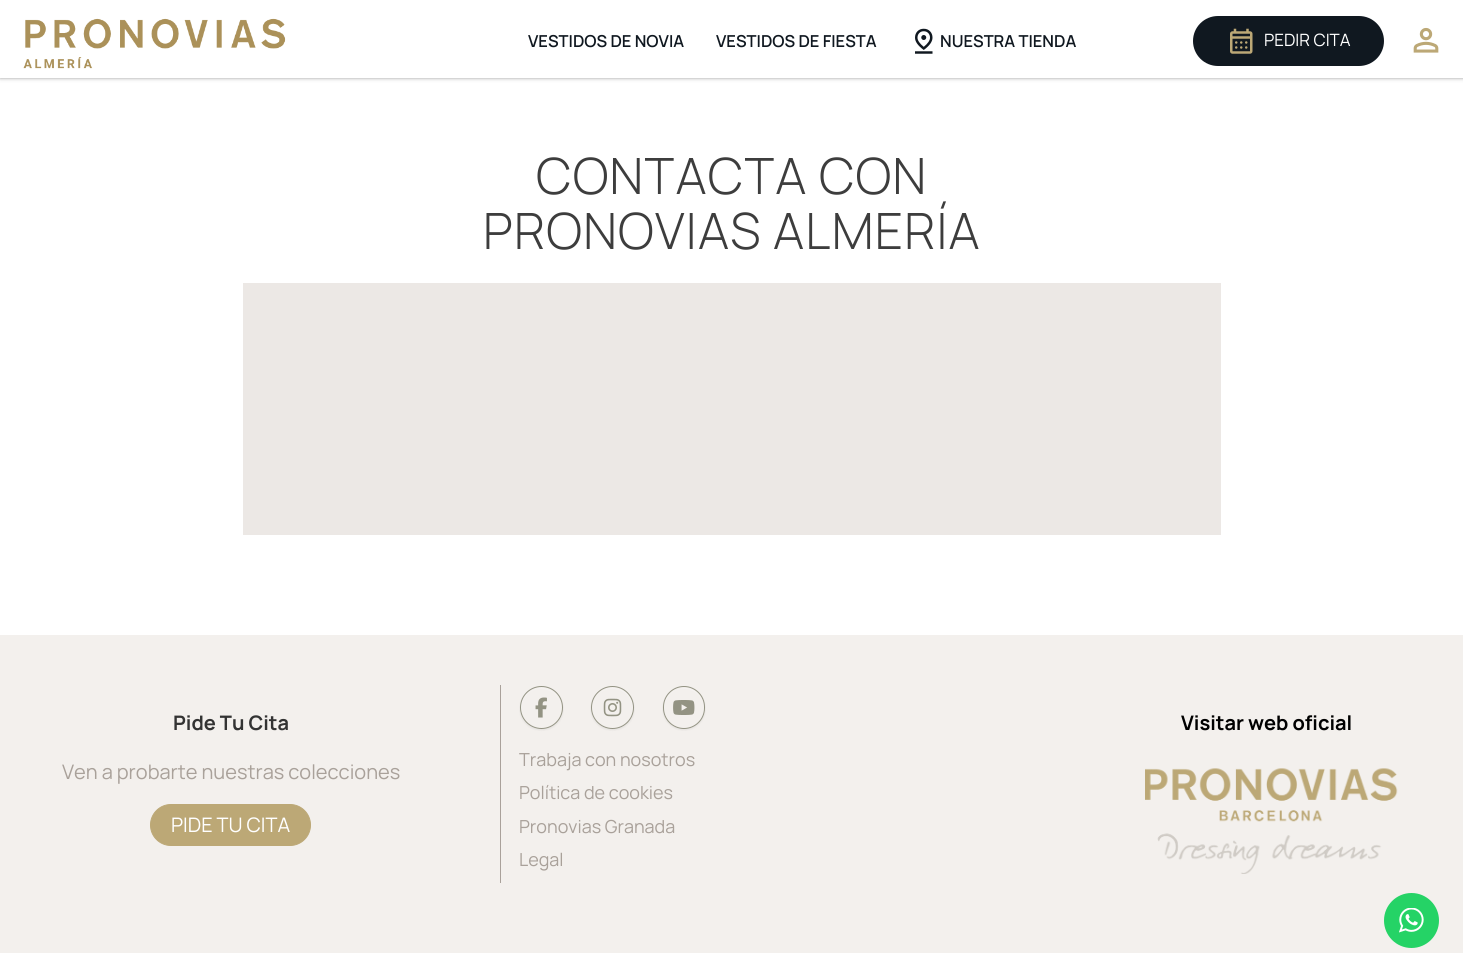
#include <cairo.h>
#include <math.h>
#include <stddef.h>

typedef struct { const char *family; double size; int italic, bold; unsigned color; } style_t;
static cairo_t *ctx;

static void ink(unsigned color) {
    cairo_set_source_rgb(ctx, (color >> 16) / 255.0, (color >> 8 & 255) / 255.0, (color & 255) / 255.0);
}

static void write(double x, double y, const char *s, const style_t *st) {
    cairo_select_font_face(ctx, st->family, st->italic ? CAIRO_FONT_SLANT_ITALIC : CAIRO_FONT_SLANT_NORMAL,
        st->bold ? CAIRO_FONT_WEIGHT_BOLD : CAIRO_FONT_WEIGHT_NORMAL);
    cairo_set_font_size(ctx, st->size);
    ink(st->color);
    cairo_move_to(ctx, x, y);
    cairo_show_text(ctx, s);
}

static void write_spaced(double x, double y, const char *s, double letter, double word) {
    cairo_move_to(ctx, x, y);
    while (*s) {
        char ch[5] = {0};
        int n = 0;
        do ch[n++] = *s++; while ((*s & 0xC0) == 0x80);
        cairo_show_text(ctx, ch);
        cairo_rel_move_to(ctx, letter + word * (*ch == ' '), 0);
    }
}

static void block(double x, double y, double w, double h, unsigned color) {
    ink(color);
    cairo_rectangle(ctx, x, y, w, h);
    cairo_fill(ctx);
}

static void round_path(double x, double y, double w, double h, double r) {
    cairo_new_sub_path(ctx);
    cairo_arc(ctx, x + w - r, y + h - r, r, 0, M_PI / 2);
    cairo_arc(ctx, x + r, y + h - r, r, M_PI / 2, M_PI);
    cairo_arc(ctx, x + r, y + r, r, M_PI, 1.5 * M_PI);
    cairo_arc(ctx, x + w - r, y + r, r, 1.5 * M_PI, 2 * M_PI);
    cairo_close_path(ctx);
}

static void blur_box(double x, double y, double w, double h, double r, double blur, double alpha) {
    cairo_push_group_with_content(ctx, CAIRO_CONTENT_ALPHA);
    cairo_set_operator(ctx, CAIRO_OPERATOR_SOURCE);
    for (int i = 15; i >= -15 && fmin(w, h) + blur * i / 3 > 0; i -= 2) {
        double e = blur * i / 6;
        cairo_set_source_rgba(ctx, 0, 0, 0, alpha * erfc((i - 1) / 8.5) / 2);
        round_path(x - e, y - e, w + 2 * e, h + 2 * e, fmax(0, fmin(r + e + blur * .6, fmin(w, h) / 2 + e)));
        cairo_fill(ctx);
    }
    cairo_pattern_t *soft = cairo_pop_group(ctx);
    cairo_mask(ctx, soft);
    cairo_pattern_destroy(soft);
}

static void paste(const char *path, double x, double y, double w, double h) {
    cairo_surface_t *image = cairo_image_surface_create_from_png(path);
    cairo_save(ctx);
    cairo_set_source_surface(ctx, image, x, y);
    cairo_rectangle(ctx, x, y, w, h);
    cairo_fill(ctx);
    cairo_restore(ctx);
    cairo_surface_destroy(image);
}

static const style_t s1 = {"Manrope SemiBold", 16.5, 0, 0, 0x101820};
static const style_t s2 = {"Manrope", 17, 0, 0, 0xffffff};
static const style_t s3 = {"Manrope", 20, 0, 1, 0x333333};
static const style_t s4 = {"Manrope", 20, 0, 0, 0xa9a19a};
static const style_t s5 = {"Manrope", 20, 0, 0, 0xffffff};
static const style_t s6 = {"Manrope", 20, 0, 1, 0x000000};
static const style_t s7 = {"Manrope", 18, 0, 0, 0xa9a19a};

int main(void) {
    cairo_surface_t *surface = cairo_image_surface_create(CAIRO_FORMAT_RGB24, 1463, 972);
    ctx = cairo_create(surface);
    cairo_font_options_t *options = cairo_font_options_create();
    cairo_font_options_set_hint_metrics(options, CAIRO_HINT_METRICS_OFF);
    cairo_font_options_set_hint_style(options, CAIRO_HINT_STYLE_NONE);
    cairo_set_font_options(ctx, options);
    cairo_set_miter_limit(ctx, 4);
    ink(0xffffff);
    cairo_paint(ctx);
    ink(0x000000);
    blur_box(0, 0, 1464, 78, 0, 2, 0.4);
    block(0, 0, 1463, 78, 0xffffff);
    paste("pic1.png", 23, 18, 263, 51);
    write(528, 47, "VESTIDOS DE NOVIA", &s1);
    write(716, 47, "VESTIDOS DE FIESTA", &s1);
    paste("pic2.png", 915, 28, 18, 26);
    write(940, 47, "NUESTRA TIENDA", &s1);
    round_path(1193, 16, 191, 50, 25);
    cairo_fill(ctx);
    paste("pic3.png", 1230, 28, 23, 26);
    write(1264, 46, "PEDIR CITA", &s2);
    paste("pic4.png", 1413, 27, 26, 26);
    cairo_select_font_face(ctx, "Manrope Light", CAIRO_FONT_SLANT_NORMAL, CAIRO_FONT_WEIGHT_NORMAL);
    cairo_set_font_size(ctx, 50);
    ink(0x3d3d3d);
    write_spaced(536, 194, "CONTACTA CON", 1.25, 0);
    write_spaced(483, 249, "PRONOVIAS ALMERÍA", 1.25, 0);
    block(243, 283, 978, 252, 0xece8e5);
    block(0, 635, 1463, 318, 0xf3f0ed);
    write(173, 730, "Pide Tu Cita", &s3);
    write(62, 779, "Ven a probarte nuestras colecciones", &s4);
    ink(0xbca876);
    round_path(150.5, 804.5, 160, 41, 20.5);
    cairo_fill_preserve(ctx);
    cairo_set_line_width(ctx, 1);
    cairo_stroke(ctx);
    write(171, 832, "PIDE TU CITA", &s5);
    write(1181, 730, "Visitar web oficial", &s6);
    paste("pic5.png", 1145, 768, 253, 106);
    block(500, 685, 1, 198, 0xa9a19a);
    cairo_save(ctx);
    cairo_set_fill_rule(ctx, CAIRO_FILL_RULE_EVEN_ODD);
    cairo_new_path(ctx);
    cairo_move_to(ctx, 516, 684);
    cairo_line_to(ctx, 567, 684);
    cairo_line_to(ctx, 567, 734);
    cairo_line_to(ctx, 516, 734);
    cairo_close_path(ctx);
    cairo_move_to(ctx, 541.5, 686);
    cairo_curve_to(ctx, 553.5, 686, 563, 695.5, 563, 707.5);
    cairo_curve_to(ctx, 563, 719.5, 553.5, 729, 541.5, 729);
    cairo_curve_to(ctx, 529.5, 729, 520, 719.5, 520, 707.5);
    cairo_curve_to(ctx, 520, 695.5, 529.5, 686, 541.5, 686);
    cairo_close_path(ctx);
    cairo_clip(ctx);
    ink(0x000000);
    blur_box(520, 688, 43, 42, 21, 1, 0.07);
    cairo_restore(ctx);
    ink(0xf5f3f1);
    cairo_new_path(ctx);
    cairo_move_to(ctx, 541, 689);
    cairo_curve_to(ctx, 557, 689, 563, 704, 560, 715);
    cairo_curve_to(ctx, 562, 711, 561, 705, 559, 700);
    cairo_curve_to(ctx, 549, 676, 513, 692, 522, 715);
    cairo_curve_to(ctx, 519, 704, 525, 689, 541, 689);
    cairo_close_path(ctx);
    cairo_fill(ctx);
    cairo_arc(ctx, 541.5, 707.5, 21, 0, 2 * M_PI);
    ink(0x939383);
    cairo_stroke(ctx);
    paste("pic6.png", 535, 697, 12, 21);
    cairo_save(ctx);
    cairo_set_fill_rule(ctx, CAIRO_FILL_RULE_EVEN_ODD);
    cairo_new_path(ctx);
    cairo_move_to(ctx, 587, 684);
    cairo_line_to(ctx, 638, 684);
    cairo_line_to(ctx, 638, 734);
    cairo_line_to(ctx, 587, 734);
    cairo_close_path(ctx);
    cairo_move_to(ctx, 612.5, 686);
    cairo_curve_to(ctx, 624.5, 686, 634, 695.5, 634, 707.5);
    cairo_curve_to(ctx, 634, 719.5, 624.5, 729, 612.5, 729);
    cairo_curve_to(ctx, 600.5, 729, 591, 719.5, 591, 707.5);
    cairo_curve_to(ctx, 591, 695.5, 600.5, 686, 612.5, 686);
    cairo_close_path(ctx);
    cairo_clip(ctx);
    ink(0x000000);
    blur_box(591, 688, 43, 42, 21, 1, 0.07);
    cairo_restore(ctx);
    ink(0xf5f3f1);
    cairo_new_path(ctx);
    cairo_move_to(ctx, 612, 689);
    cairo_curve_to(ctx, 630, 689, 636, 706.5, 630, 718);
    cairo_curve_to(ctx, 641.5, 699, 617.5, 678.5, 600, 692.5);
    cairo_curve_to(ctx, 603.5, 690.5, 607, 689, 612, 689);
    cairo_close_path(ctx);
    cairo_fill(ctx);
    cairo_arc(ctx, 612.5, 707.5, 21, 0, 2 * M_PI);
    ink(0x939383);
    cairo_stroke(ctx);
    paste("pic7.png", 603, 698, 19, 19);
    cairo_save(ctx);
    cairo_set_fill_rule(ctx, CAIRO_FILL_RULE_EVEN_ODD);
    cairo_new_path(ctx);
    cairo_move_to(ctx, 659, 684);
    cairo_line_to(ctx, 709, 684);
    cairo_line_to(ctx, 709, 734);
    cairo_line_to(ctx, 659, 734);
    cairo_close_path(ctx);
    cairo_move_to(ctx, 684, 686);
    cairo_curve_to(ctx, 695.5, 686, 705, 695.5, 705, 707);
    cairo_line_to(ctx, 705, 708);
    cairo_curve_to(ctx, 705, 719.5, 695.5, 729, 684, 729);
    cairo_curve_to(ctx, 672.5, 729, 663, 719.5, 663, 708);
    cairo_line_to(ctx, 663, 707);
    cairo_curve_to(ctx, 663, 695.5, 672.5, 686, 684, 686);
    cairo_close_path(ctx);
    cairo_clip(ctx);
    ink(0x000000);
    blur_box(663, 688, 42, 42, 21, 1, 0.07);
    cairo_restore(ctx);
    ink(0xf5f3f1);
    cairo_new_path(ctx);
    cairo_move_to(ctx, 684, 689);
    cairo_curve_to(ctx, 700, 689, 706, 704, 703, 715);
    cairo_curve_to(ctx, 705, 711, 704, 705, 702, 700);
    cairo_curve_to(ctx, 692, 676, 656, 692, 665, 715);
    cairo_curve_to(ctx, 662, 704, 668, 689, 684, 689);
    cairo_close_path(ctx);
    cairo_fill(ctx);
    round_path(663.5, 686.5, 41, 42, 20.5);
    ink(0x939383);
    cairo_stroke(ctx);
    paste("pic8.png", 673, 700, 22, 15);
    write(519, 766, "Trabaja con nosotros", &s7);
    write(519, 799, "Política de cookies", &s7);
    write(519, 833, "Pronovias Granada", &s7);
    write(519, 866, "Legal", &s7);
    ink(0x25d366);
    cairo_new_path(ctx);
    cairo_arc(ctx, 1411.5, 920.5, 27.5, 0, 2 * M_PI);
    cairo_fill(ctx);
    paste("pic9.png", 1399, 908, 25, 25);
    cairo_surface_write_to_png(surface, "screenshot.png");
    cairo_font_options_destroy(options);
    cairo_destroy(ctx);
    cairo_surface_destroy(surface);
    return 0;
}
